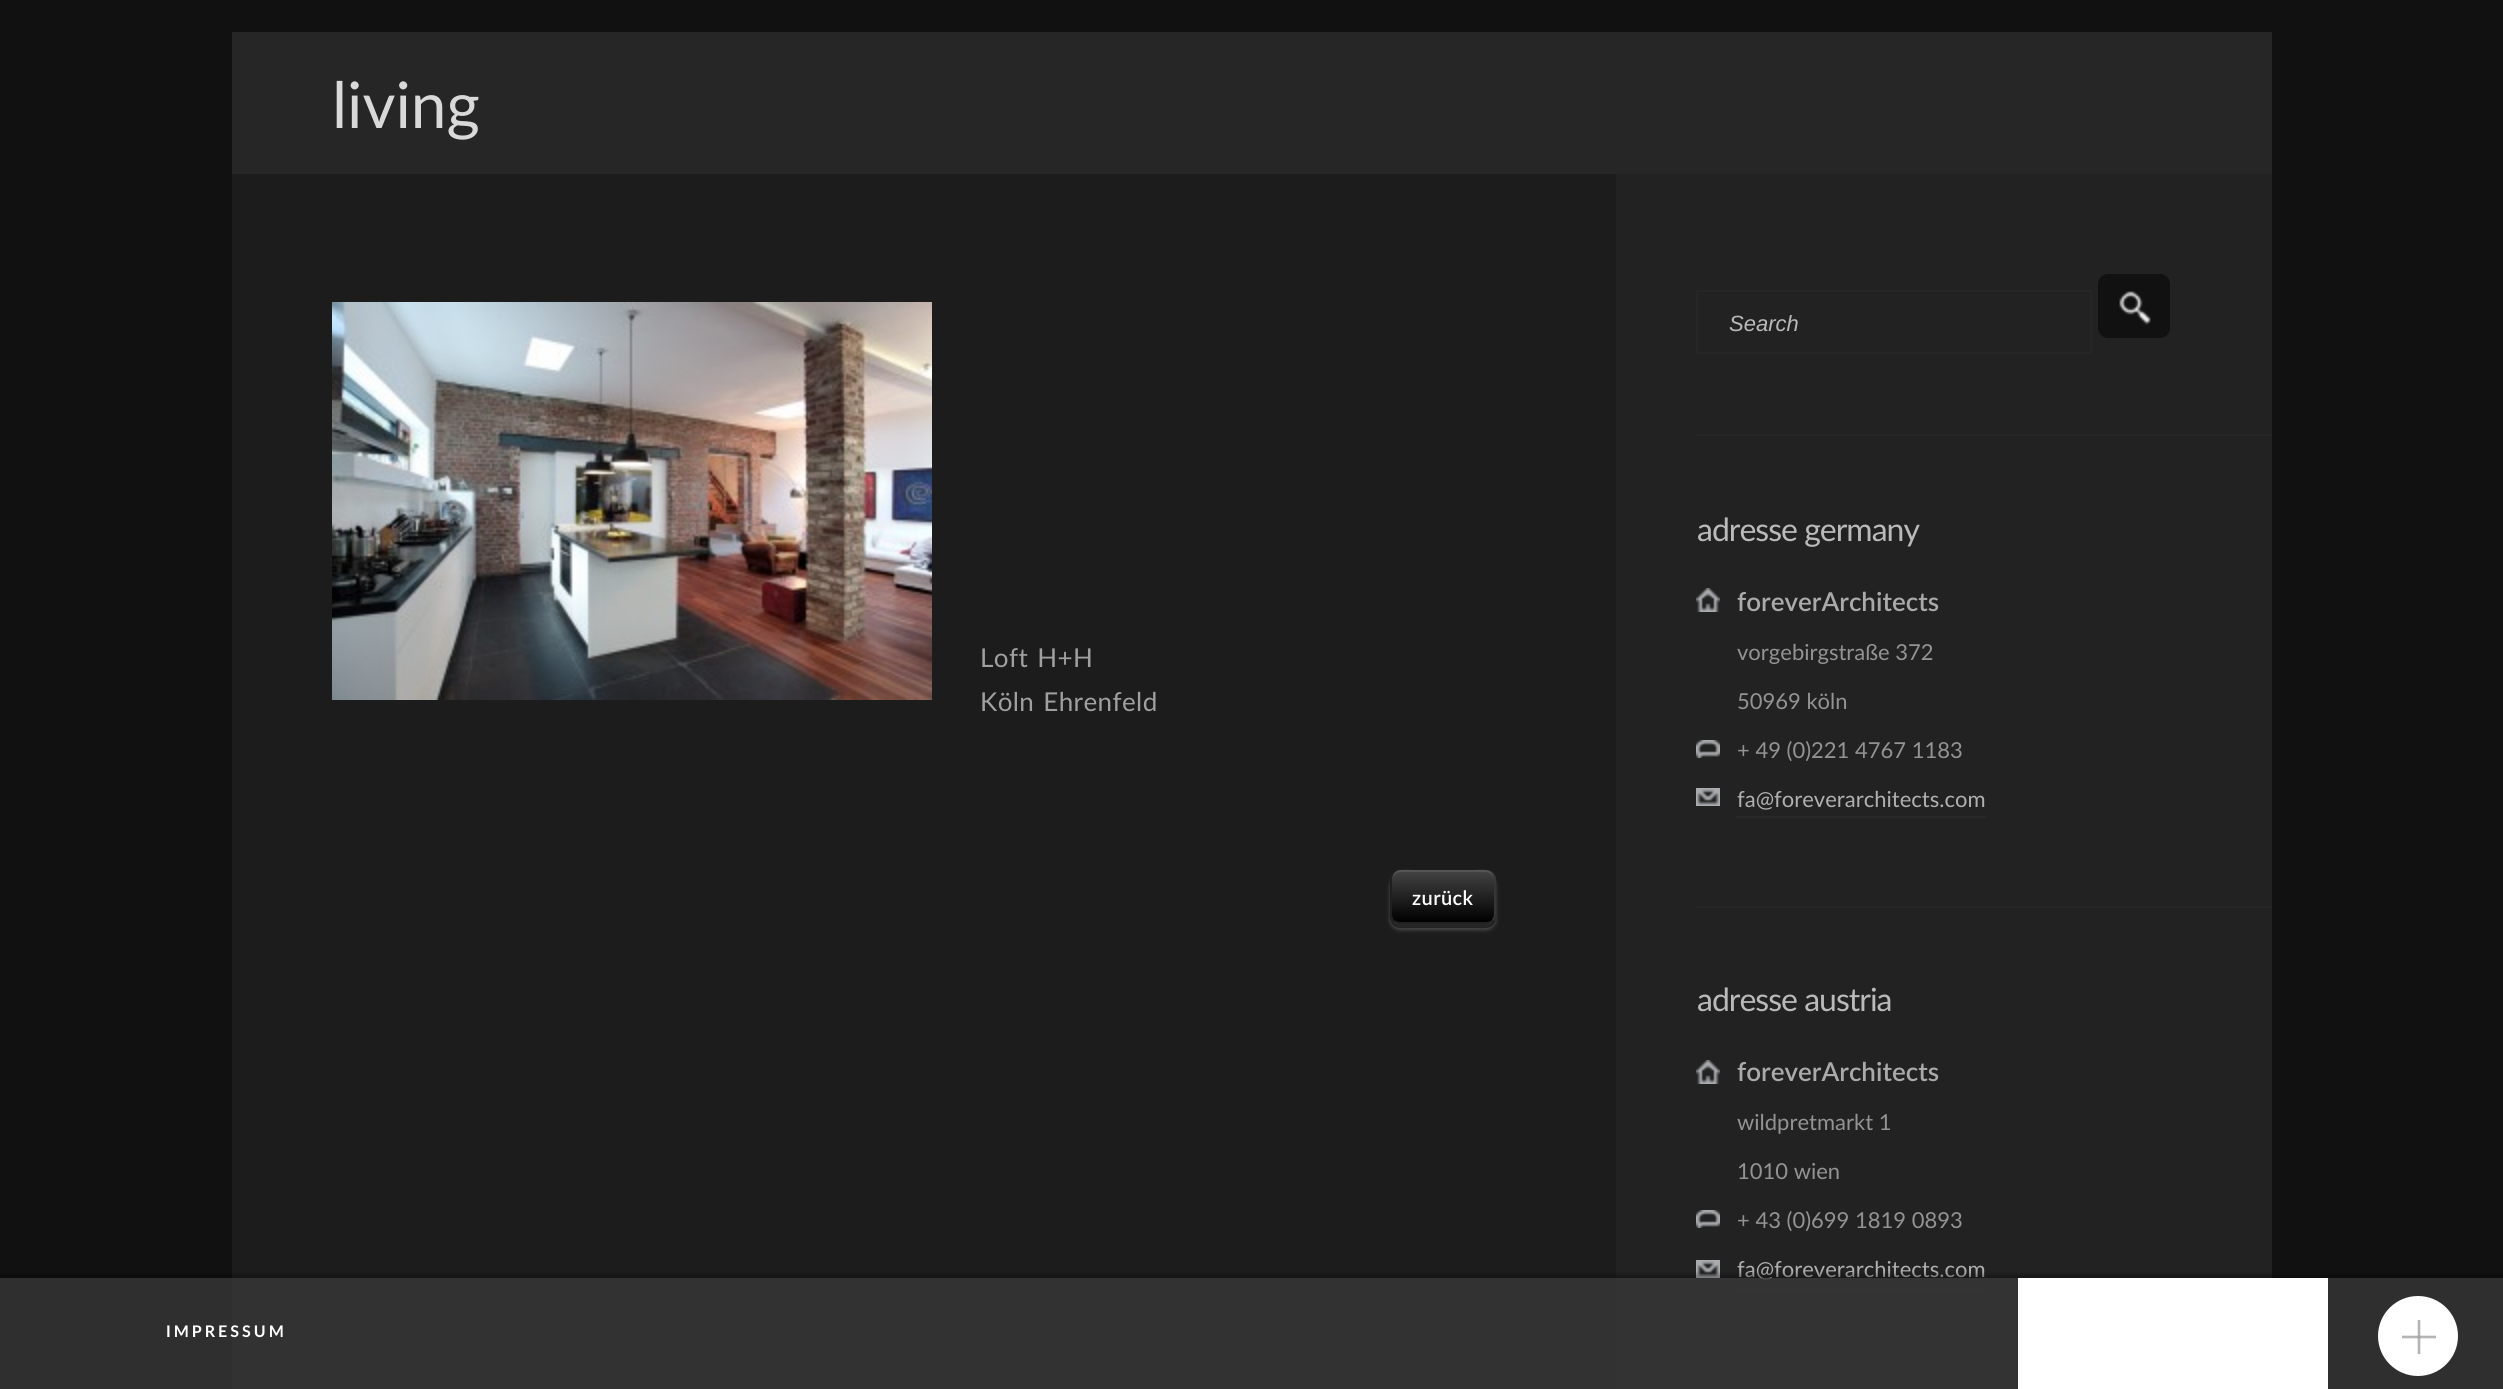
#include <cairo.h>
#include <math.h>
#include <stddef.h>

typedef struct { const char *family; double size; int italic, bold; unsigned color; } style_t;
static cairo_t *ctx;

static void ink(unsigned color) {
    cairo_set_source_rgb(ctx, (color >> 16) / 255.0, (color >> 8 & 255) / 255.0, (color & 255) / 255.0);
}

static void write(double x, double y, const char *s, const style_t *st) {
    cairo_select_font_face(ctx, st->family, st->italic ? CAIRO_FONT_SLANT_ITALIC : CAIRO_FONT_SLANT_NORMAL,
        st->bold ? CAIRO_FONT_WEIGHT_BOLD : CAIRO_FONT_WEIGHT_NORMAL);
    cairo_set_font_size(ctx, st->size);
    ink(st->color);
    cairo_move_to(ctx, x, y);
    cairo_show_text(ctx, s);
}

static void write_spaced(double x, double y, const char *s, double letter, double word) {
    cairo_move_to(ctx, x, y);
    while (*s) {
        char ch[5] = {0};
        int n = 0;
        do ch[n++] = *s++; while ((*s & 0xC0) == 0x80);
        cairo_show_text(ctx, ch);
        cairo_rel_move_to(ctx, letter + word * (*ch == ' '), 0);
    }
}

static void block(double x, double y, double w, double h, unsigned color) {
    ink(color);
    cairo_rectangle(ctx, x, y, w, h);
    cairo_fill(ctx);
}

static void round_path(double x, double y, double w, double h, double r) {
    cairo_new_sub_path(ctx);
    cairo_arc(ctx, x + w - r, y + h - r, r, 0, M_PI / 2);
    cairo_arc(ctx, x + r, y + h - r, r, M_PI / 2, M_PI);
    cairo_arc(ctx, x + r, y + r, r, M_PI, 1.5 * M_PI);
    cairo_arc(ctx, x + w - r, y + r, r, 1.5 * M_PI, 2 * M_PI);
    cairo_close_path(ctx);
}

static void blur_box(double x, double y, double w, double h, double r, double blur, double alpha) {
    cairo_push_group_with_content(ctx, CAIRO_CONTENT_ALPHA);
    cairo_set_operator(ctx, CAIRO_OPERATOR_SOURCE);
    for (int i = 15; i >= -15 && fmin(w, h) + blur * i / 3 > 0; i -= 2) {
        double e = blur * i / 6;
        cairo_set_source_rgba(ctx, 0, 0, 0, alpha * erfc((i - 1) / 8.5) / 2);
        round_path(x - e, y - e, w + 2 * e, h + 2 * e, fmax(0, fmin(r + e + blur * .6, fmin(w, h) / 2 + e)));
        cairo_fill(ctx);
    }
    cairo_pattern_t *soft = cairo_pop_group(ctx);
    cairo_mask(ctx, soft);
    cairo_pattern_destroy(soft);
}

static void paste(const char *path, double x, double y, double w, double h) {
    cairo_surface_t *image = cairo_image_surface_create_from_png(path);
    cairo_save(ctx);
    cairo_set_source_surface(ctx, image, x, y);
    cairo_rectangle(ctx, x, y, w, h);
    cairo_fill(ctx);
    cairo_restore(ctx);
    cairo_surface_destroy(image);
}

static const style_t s1 = {"Lato", 64, 0, 0, 0xd9d9d9};
static const style_t s2 = {"Liberation Sans", 22, 1, 0, 0xbababa};
static const style_t s3 = {"Lato SemiBold", 26, 0, 0, 0xaaaaaa};
static const style_t s4 = {"Lato", 22, 0, 0, 0x939393};
static const style_t s5 = {"Lato", 22, 0, 0, 0xb1afaf};

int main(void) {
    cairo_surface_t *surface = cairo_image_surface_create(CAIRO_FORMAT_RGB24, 2503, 1389);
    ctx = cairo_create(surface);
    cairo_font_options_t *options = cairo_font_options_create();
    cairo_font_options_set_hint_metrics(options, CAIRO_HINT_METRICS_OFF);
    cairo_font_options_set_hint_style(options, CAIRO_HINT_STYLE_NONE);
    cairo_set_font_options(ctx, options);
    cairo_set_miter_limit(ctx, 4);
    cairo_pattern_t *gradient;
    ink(0x111111);
    cairo_paint(ctx);
    block(232, 174, 1384, 1215, 0x1c1c1c);
    block(232, 32, 2040, 142, 0x262626);
    write(332, 128, "living", &s1);
    paste("pic1.png", 332, 302, 600, 398);
    cairo_set_font_size(ctx, 26);
    ink(0xa0a0a0);
    write_spaced(980, 667, "Loft H+H", 0.4, 2);
    write_spaced(980, 711, "Köln Ehrenfeld", 0.4, 2);
    ink(0x4d4d4d);
    blur_box(1390, 876, 106, 54, 10, 2, 1);
    cairo_set_source_rgba(ctx, 0, 0, 0, 0.5);
    cairo_new_path(ctx);
    cairo_move_to(ctx, 1390, 914);
    cairo_curve_to(ctx, 1390, 931, 1400, 928, 1414, 928);
    cairo_line_to(ctx, 1472, 928);
    cairo_curve_to(ctx, 1486, 928, 1496, 931, 1496, 914);
    cairo_curve_to(ctx, 1496, 920, 1492, 924, 1486, 924);
    cairo_line_to(ctx, 1400, 924);
    cairo_curve_to(ctx, 1394, 924, 1390, 920, 1390, 914);
    cairo_close_path(ctx);
    cairo_fill(ctx);
    cairo_save(ctx);
    round_path(1390, 870, 106, 54, 10);
    cairo_clip(ctx);
    gradient = cairo_pattern_create_linear(1443, 870, 1443, 922);
    cairo_pattern_add_color_stop_rgba(gradient, 0, 0.267, 0.267, 0.267, 1);
    cairo_pattern_add_color_stop_rgba(gradient, 1, 0, 0, 0, 1);
    cairo_set_source(ctx, gradient);
    cairo_pattern_destroy(gradient);
    cairo_new_path(ctx);
    cairo_move_to(ctx, 1400, 870);
    cairo_line_to(ctx, 1486, 870);
    cairo_curve_to(ctx, 1491.5, 870, 1496, 874.5, 1496, 880);
    cairo_line_to(ctx, 1496, 922);
    cairo_line_to(ctx, 1390, 922);
    cairo_line_to(ctx, 1390, 880);
    cairo_curve_to(ctx, 1390, 874.5, 1394.5, 870, 1400, 870);
    cairo_close_path(ctx);
    cairo_fill(ctx);
    cairo_restore(ctx);
    ink(0x555555);
    cairo_new_path(ctx);
    cairo_move_to(ctx, 1400, 872);
    cairo_line_to(ctx, 1486, 872);
    cairo_curve_to(ctx, 1490, 872, 1494, 876, 1494, 882);
    cairo_curve_to(ctx, 1494, 867, 1484, 870, 1472, 870);
    cairo_line_to(ctx, 1414, 870);
    cairo_curve_to(ctx, 1402, 870, 1392, 867, 1392, 882);
    cairo_curve_to(ctx, 1392, 876, 1396, 872, 1400, 872);
    cairo_close_path(ctx);
    cairo_fill(ctx);
    ink(0x373636);
    cairo_new_path(ctx);
    cairo_move_to(ctx, 1496, 880);
    cairo_curve_to(ctx, 1496, 874, 1492, 870, 1486, 870);
    cairo_curve_to(ctx, 1490, 870, 1494, 874, 1494, 880);
    cairo_line_to(ctx, 1494, 914);
    cairo_curve_to(ctx, 1494, 916, 1493, 918, 1492, 920);
    cairo_line_to(ctx, 1493, 921);
    cairo_curve_to(ctx, 1495, 920, 1496, 917, 1496, 914);
    cairo_close_path(ctx);
    cairo_fill(ctx);
    ink(0x222222);
    cairo_new_path(ctx);
    cairo_move_to(ctx, 1394, 920);
    cairo_curve_to(ctx, 1396, 921, 1398, 922, 1400, 922);
    cairo_line_to(ctx, 1486, 922);
    cairo_curve_to(ctx, 1488, 922, 1490, 921, 1492, 920);
    cairo_line_to(ctx, 1493, 921);
    cairo_curve_to(ctx, 1492, 923, 1489, 924, 1486, 924);
    cairo_line_to(ctx, 1400, 924);
    cairo_curve_to(ctx, 1397, 924, 1394, 923, 1393, 921);
    cairo_close_path(ctx);
    cairo_fill(ctx);
    ink(0x1f1f1f);
    cairo_new_path(ctx);
    cairo_move_to(ctx, 1400, 870);
    cairo_curve_to(ctx, 1394, 870, 1390, 874, 1390, 880);
    cairo_line_to(ctx, 1390, 914);
    cairo_curve_to(ctx, 1390, 917, 1391, 920, 1393, 921);
    cairo_line_to(ctx, 1394, 920);
    cairo_curve_to(ctx, 1393, 918, 1392, 916, 1392, 914);
    cairo_line_to(ctx, 1392, 880);
    cairo_curve_to(ctx, 1392, 874, 1396, 870, 1400, 870);
    cairo_close_path(ctx);
    cairo_fill(ctx);
    cairo_select_font_face(ctx, "Lato SemiBold", CAIRO_FONT_SLANT_NORMAL, CAIRO_FONT_WEIGHT_NORMAL);
    cairo_set_font_size(ctx, 20);
    ink(0xffffff);
    write_spaced(1412, 905, "zurück", 0.4, 0);
    block(1616, 174, 656, 1215, 0x222222);
    block(1696, 434, 576, 2, 0x282727);
    cairo_rectangle(ctx, 1697, 291, 394, 62);
    ink(0x262626);
    cairo_stroke(ctx);
    write(1729, 331, "Search", &s2);
    ink(0x111111);
    round_path(2098, 274, 72, 64, 10);
    cairo_fill(ctx);
    paste("pic2.png", 2119, 291, 32, 34);
    block(1696, 906, 576, 2, 0x282727);
    cairo_select_font_face(ctx, "Lato", CAIRO_FONT_SLANT_NORMAL, CAIRO_FONT_WEIGHT_NORMAL);
    cairo_set_font_size(ctx, 32);
    ink(0xbababa);
    write_spaced(1697, 541, "adresse germany", -1, 0);
    paste("pic3.png", 1696, 588, 24, 24);
    write(1737, 611, "foreverArchitects", &s3);
    write(1737, 660, "vorgebirgstraße 372", &s4);
    write(1737, 709, "50969 köln", &s4);
    paste("pic4.png", 1696, 740, 24, 18);
    write(1737, 758, "+ 49 (0)221 4767 1183", &s4);
    paste("pic5.png", 1696, 788, 24, 18);
    write(1737, 807, "fa@foreverarchitects.com", &s5);
    block(1736, 816, 250, 2, 0x282828);
    cairo_set_font_size(ctx, 32);
    ink(0xbababa);
    write_spaced(1697, 1011, "adresse austria", -1, 0);
    paste("pic3.png", 1696, 1060, 24, 24);
    write(1737, 1081, "foreverArchitects", &s3);
    write(1737, 1130, "wildpretmarkt 1", &s4);
    write(1737, 1179, "1010 wien", &s4);
    paste("pic4.png", 1696, 1210, 24, 18);
    write(1737, 1228, "+ 43 (0)699 1819 0893", &s4);
    paste("pic5.png", 1696, 1260, 24, 18);
    write(1737, 1277, "fa@foreverarchitects.com", &s5);
    block(1736, 1288, 250, 2, 0x282828);
    cairo_save(ctx);
    cairo_rectangle(ctx, 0, 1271, 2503, 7);
    cairo_clip(ctx);
    ink(0x000000);
    blur_box(-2, 1274, 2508, 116, 0, 2, 0.3);
    cairo_restore(ctx);
    cairo_set_source_rgba(ctx, 0.216, 0.216, 0.216, 0.8);
    cairo_rectangle(ctx, 0, 1278, 2503, 111);
    cairo_fill(ctx);
    cairo_select_font_face(ctx, "Lato", CAIRO_FONT_SLANT_NORMAL, CAIRO_FONT_WEIGHT_BOLD);
    cairo_set_font_size(ctx, 16);
    ink(0xffffff);
    write_spaced(166, 1337, "IMPRESSUM", 3, 0);
    block(2018, 1278, 310, 111, 0xffffff);
    cairo_new_path(ctx);
    cairo_arc(ctx, 2418, 1336, 40, 0, 2 * M_PI);
    cairo_fill(ctx);
    paste("pic6.png", 2402, 1320, 34, 34);
    cairo_surface_write_to_png(surface, "screenshot.png");
    cairo_font_options_destroy(options);
    cairo_destroy(ctx);
    cairo_surface_destroy(surface);
    return 0;
}
